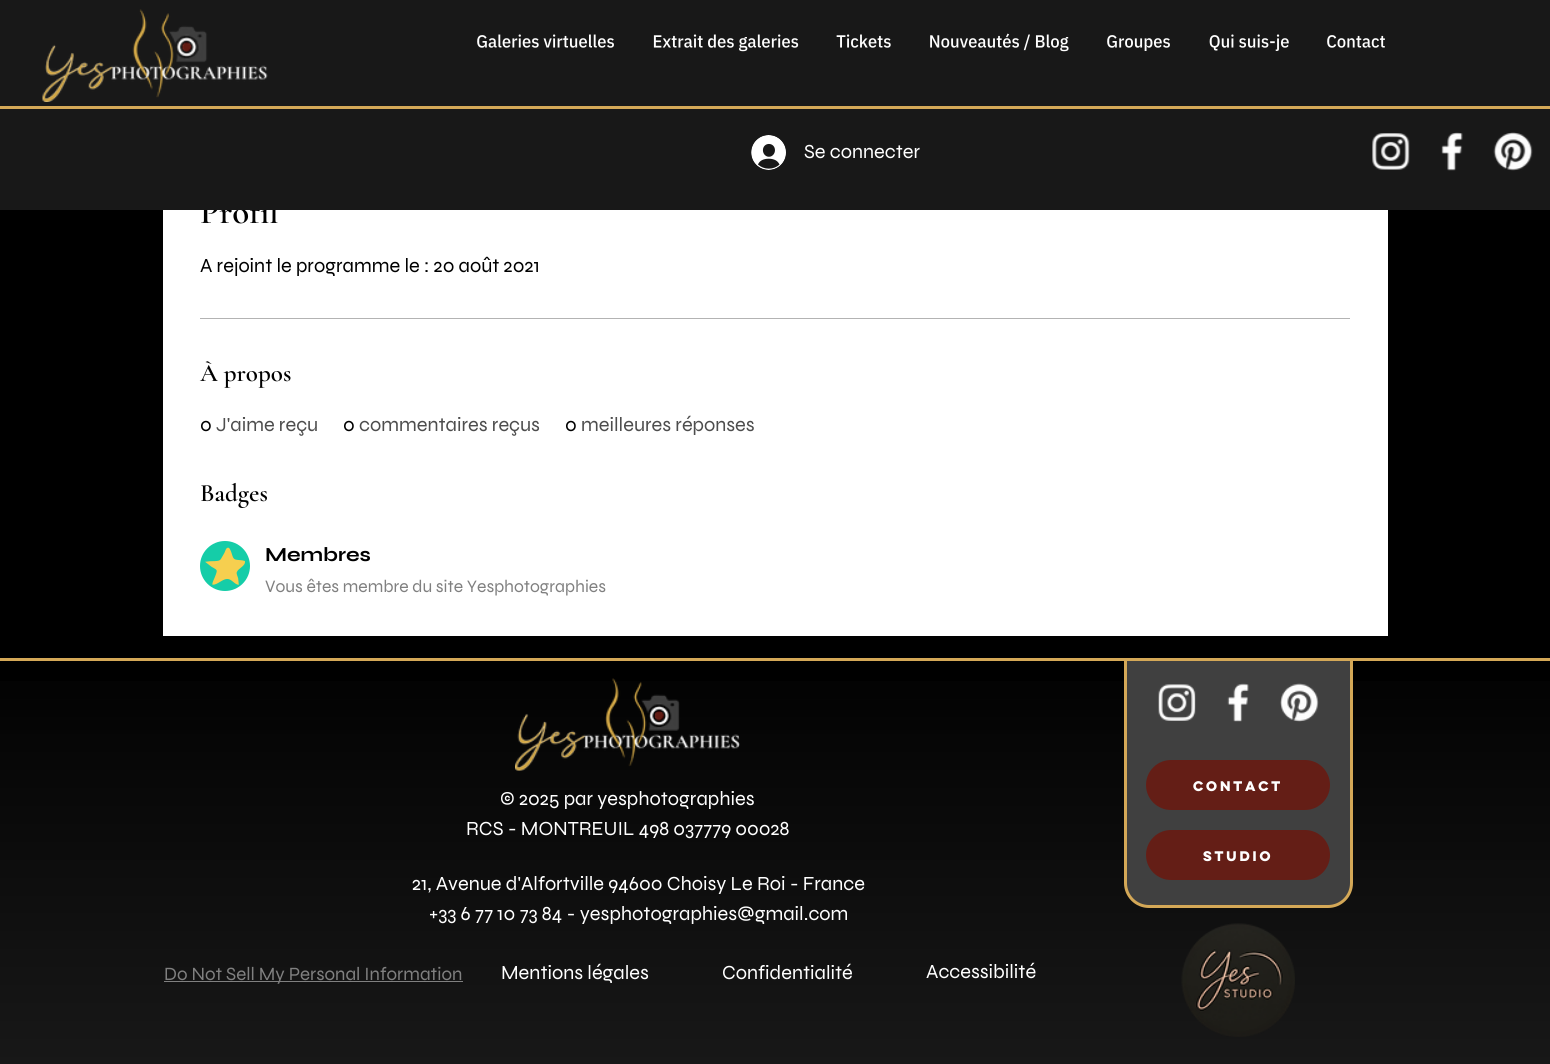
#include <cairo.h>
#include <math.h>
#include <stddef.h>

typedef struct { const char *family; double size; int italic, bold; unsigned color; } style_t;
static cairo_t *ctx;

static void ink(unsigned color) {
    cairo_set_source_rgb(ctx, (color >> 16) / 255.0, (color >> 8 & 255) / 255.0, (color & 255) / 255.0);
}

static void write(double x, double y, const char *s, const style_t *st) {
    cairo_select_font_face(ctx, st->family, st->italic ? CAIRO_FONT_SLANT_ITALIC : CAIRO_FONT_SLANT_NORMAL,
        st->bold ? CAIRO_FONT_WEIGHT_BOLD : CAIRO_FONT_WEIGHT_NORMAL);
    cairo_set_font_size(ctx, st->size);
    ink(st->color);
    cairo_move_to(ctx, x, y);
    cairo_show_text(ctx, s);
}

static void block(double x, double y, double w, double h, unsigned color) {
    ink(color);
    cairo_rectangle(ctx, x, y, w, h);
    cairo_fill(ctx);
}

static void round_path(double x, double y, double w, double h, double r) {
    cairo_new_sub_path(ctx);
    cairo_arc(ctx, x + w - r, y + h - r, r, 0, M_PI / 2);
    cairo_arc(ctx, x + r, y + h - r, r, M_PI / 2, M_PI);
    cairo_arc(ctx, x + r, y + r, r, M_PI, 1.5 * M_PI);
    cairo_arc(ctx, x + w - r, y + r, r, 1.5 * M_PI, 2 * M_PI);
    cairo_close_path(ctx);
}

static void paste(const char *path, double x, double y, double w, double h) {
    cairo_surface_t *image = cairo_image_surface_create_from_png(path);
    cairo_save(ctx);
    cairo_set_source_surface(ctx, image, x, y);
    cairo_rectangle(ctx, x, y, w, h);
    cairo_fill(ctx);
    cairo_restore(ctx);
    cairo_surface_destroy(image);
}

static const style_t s1 = {"Cormorant Garamond SemiBold", 35, 0, 0, 0x000000};
static const style_t s2 = {"Syne", 20, 0, 0, 0xffffff};
static const style_t s3 = {"Syne", 20, 0, 0, 0x000000};
static const style_t s4 = {"Cormorant Garamond SemiBold", 25, 0, 0, 0x000000};
static const style_t s5 = {"Syne", 20, 0, 0, 0x4d4d4d};
static const style_t s6 = {"Syne", 20, 0, 1, 0x000000};
static const style_t s7 = {"Syne", 17.5, 0, 0, 0x808080};
static const style_t s8 = {"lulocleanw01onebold", 12.5, 0, 1, 0xffffff};
static const style_t s9 = {"Syne", 18.75, 0, 0, 0x808080};

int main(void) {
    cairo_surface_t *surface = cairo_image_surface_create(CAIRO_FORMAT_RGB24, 1550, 1064);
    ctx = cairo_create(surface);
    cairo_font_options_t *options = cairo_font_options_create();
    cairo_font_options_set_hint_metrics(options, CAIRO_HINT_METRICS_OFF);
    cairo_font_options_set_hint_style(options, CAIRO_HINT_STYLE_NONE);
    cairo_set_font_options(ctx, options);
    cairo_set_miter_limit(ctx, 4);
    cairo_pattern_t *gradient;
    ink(0x000000);
    cairo_paint(ctx);
    block(163, 210, 1225, 426, 0xffffff);
    write(200, 223, "Profil", &s1);
    block(0, 0, 1550, 210, 0x181818);
    paste("pic1.png", 42, 9, 226, 93);
    paste("pic2.png", 477, 34, 137, 14);
    paste("pic3.png", 653, 34, 146, 18);
    paste("pic4.png", 836, 34, 55, 14);
    paste("pic5.png", 930, 33, 139, 19);
    paste("pic6.png", 1107, 35, 63, 16);
    paste("pic7.png", 1209, 34, 80, 17);
    paste("pic8.png", 1327, 35, 58, 13);
    block(0, 106, 1550, 3, 0xd4a857);
    paste("pic9.png", 751, 135, 35, 35);
    write(804, 158, "Se connecter", &s2);
    paste("pic10.png", 1372, 133, 38, 37);
    paste("pic11.png", 1441, 132, 22, 39);
    paste("pic12.png", 1493, 132, 40, 39);
    write(200, 272, "A rejoint le programme le : 20 août 2021", &s3);
    block(200, 318, 1150, 1, 0xb3b3b3);
    write(200, 381, "À propos", &s4);
    write(200, 431, "0", &s3);
    write(216, 431, "J'aime reçu", &s5);
    write(343, 431, "0", &s3);
    write(359, 431, "commentaires reçus", &s5);
    write(565, 431, "0", &s3);
    write(581, 431, "meilleures réponses", &s5);
    write(200, 501, "Badges", &s4);
    ink(0x15cda8);
    cairo_new_path(ctx);
    cairo_arc(ctx, 225, 566, 25, 0, 2 * M_PI);
    cairo_fill(ctx);
    paste("pic13.png", 205, 547, 40, 38);
    write(265, 561, "Membres", &s6);
    write(265, 592, "Vous êtes membre du site Yesphotographies", &s7);
    gradient = cairo_pattern_create_linear(775, 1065, 775, 636);
    cairo_pattern_add_color_stop_rgba(gradient, 0, 0.094, 0.094, 0.094, 1);
    cairo_pattern_add_color_stop_rgba(gradient, 1, 0, 0, 0, 1);
    cairo_set_source(ctx, gradient);
    cairo_pattern_destroy(gradient);
    cairo_rectangle(ctx, 0, 681, 1550, 383);
    cairo_fill(ctx);
    ink(0x404040);
    cairo_new_path(ctx);
    cairo_move_to(ctx, 1125.5, 659.5);
    cairo_line_to(ctx, 1351.5, 659.5);
    cairo_line_to(ctx, 1351.5, 883);
    cairo_curve_to(ctx, 1351.5, 896, 1341, 906.5, 1328, 906.5);
    cairo_line_to(ctx, 1149, 906.5);
    cairo_curve_to(ctx, 1136, 906.5, 1125.5, 896, 1125.5, 883);
    cairo_close_path(ctx);
    cairo_fill_preserve(ctx);
    ink(0xd4a857);
    cairo_set_line_width(ctx, 3);
    cairo_stroke(ctx);
    block(0, 658, 1550, 3, 0xd4a857);
    paste("pic14.png", 515, 678, 225, 93);
    write(500, 805, "© 2025 par yesphotographies", &s2);
    write(466, 835, "RCS - MONTREUIL 498 037779 00028", &s2);
    paste("pic15.png", 1158, 684, 38, 37);
    paste("pic16.png", 1227, 683, 22, 39);
    paste("pic17.png", 1280, 683, 39, 39);
    ink(0x641e16);
    round_path(1146, 760, 184, 50, 25);
    cairo_fill(ctx);
    write(1193, 791, "Contact", &s8);
    ink(0x641e16);
    round_path(1146, 830, 184, 50, 25);
    cairo_fill(ctx);
    write(1203, 861, "Studio", &s8);
    write(412, 890, "21, Avenue d'Alfortville 94600 Choisy Le Roi - France", &s2);
    write(429, 920, "+33 6 77 10 73 84 - yesphotographies@gmail.com", &s2);
    block(164, 981, 299, 1, 0x808080);
    write(164, 980, "Do Not Sell My Personal Information", &s9);
    write(501, 979, "Mentions légales", &s2);
    write(722, 979, "Confidentialité", &s2);
    write(926, 978, "Accessibilité", &s2);
    paste("pic18.png", 1181, 923, 114, 114);
    cairo_surface_write_to_png(surface, "screenshot.png");
    cairo_font_options_destroy(options);
    cairo_destroy(ctx);
    cairo_surface_destroy(surface);
    return 0;
}
